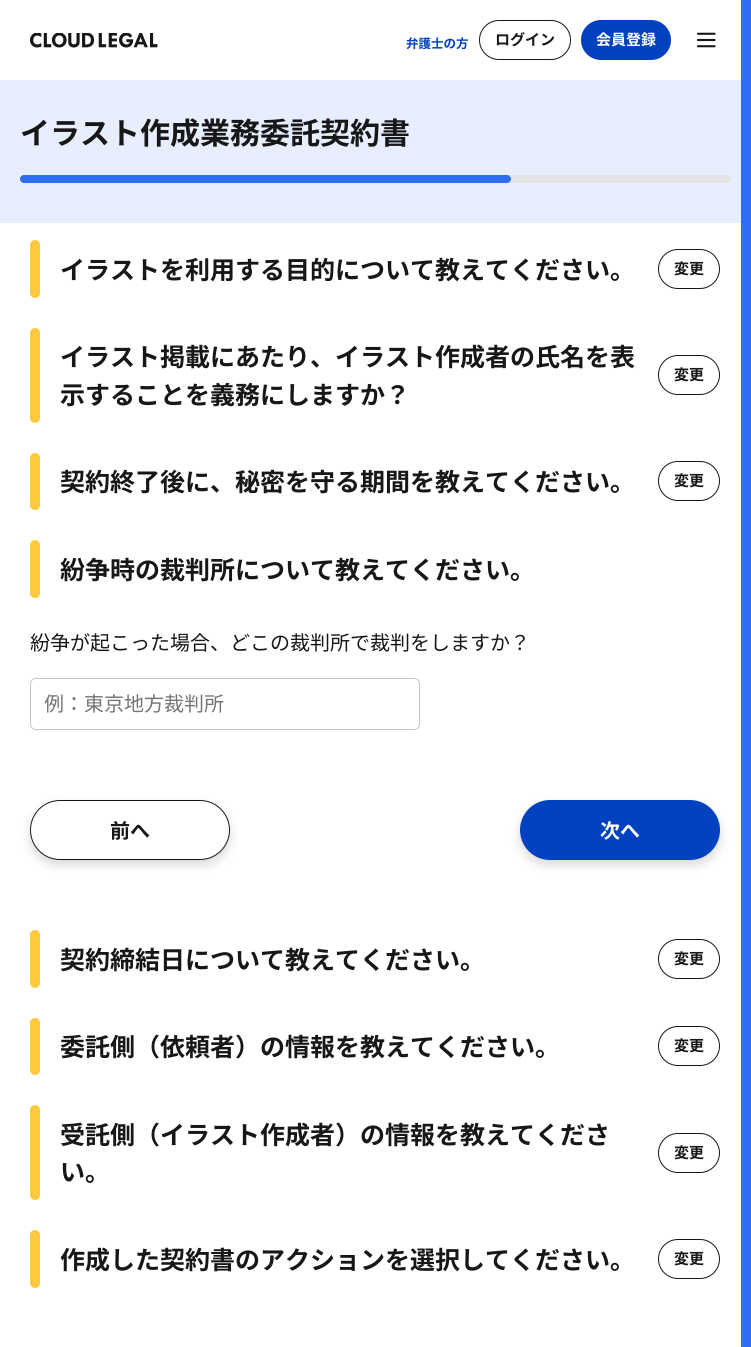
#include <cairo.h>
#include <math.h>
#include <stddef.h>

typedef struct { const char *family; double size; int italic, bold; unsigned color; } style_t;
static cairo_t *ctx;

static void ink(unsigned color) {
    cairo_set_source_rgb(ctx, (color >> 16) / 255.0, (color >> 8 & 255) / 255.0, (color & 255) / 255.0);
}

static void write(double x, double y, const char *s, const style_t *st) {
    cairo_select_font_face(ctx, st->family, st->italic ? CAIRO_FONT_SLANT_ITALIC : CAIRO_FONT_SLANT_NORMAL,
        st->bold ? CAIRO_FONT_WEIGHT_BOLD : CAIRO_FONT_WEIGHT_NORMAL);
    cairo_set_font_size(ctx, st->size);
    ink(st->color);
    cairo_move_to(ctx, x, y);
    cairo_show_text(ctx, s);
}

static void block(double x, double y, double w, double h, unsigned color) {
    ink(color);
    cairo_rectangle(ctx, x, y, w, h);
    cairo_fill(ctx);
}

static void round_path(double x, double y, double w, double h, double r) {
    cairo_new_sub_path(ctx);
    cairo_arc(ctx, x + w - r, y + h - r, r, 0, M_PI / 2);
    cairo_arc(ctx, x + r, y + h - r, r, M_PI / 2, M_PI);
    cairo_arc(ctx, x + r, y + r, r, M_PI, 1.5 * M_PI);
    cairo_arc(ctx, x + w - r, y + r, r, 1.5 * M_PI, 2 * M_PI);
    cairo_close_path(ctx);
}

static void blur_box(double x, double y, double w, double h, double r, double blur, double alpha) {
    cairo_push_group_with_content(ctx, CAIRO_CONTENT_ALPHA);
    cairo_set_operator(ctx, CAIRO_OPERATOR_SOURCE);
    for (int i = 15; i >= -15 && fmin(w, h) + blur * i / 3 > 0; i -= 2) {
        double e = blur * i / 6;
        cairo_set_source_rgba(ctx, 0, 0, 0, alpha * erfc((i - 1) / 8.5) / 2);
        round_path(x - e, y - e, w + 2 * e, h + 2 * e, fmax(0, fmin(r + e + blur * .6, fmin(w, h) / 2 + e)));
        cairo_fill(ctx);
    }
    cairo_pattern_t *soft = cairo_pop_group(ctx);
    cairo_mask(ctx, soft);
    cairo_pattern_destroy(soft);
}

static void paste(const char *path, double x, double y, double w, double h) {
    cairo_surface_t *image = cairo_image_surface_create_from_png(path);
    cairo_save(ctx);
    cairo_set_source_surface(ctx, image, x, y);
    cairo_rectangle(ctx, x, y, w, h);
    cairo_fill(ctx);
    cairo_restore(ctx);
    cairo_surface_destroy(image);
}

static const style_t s1 = {"Noto Sans JP", 12.5, 0, 1, 0x0041bf};
static const style_t s2 = {"Noto Sans JP", 15, 0, 1, 0x171717};
static const style_t s3 = {"Noto Sans JP", 15, 0, 1, 0xffffff};
static const style_t s4 = {"Noto Sans JP", 30, 0, 1, 0x171717};
static const style_t s5 = {"Noto Sans JP", 25, 0, 1, 0x171717};
static const style_t s6 = {"Noto Sans JP", 20, 0, 0, 0x171717};
static const style_t s7 = {"Noto Sans JP", 20, 0, 0, 0x757575};
static const style_t s8 = {"Noto Sans JP", 20, 0, 1, 0x171717};
static const style_t s9 = {"Noto Sans JP", 20, 0, 1, 0xffffff};

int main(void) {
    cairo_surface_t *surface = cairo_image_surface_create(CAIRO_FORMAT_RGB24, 751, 1347);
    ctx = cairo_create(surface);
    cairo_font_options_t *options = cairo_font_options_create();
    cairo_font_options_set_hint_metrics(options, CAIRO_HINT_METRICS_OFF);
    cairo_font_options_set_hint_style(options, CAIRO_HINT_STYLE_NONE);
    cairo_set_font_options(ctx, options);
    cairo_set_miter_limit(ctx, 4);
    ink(0xe6eeff);
    cairo_paint(ctx);
    block(0, 0, 741, 80, 0xffffff);
    paste("pic1.png", 30, 33, 128, 15);
    write(406, 48, "弁護士の方", &s1);
    round_path(479.5, 20.5, 91, 39, 19.5);
    ink(0x171717);
    cairo_set_line_width(ctx, 1);
    cairo_stroke(ctx);
    write(495, 45, "ログイン", &s2);
    ink(0x0041bf);
    round_path(581, 20, 90, 40, 20);
    cairo_fill(ctx);
    write(596, 45, "会員登録", &s3);
    paste("pic2.png", 696, 32, 20, 16);
    write(20, 144, "イラスト作成業務委託契約書", &s4);
    block(741, 0, 10, 1347, 0x2d6ff0);
    ink(0xe5e5e5);
    round_path(20, 175, 711, 8, 4);
    cairo_fill(ctx);
    ink(0x2d6ff0);
    round_path(20, 175, 491, 8, 4);
    cairo_fill(ctx);
    block(0, 223, 741, 1124, 0xffffff);
    ink(0xffc93e);
    round_path(30, 240, 10, 58, 5);
    cairo_fill(ctx);
    write(60, 279, "イラストを利用する目的について教えてください。", &s5);
    round_path(658.5, 249.5, 61, 39, 19.5);
    cairo_stroke(ctx);
    write(674, 274, "変更", &s2);
    ink(0xffc93e);
    round_path(30, 328, 10, 95, 5);
    cairo_fill(ctx);
    write(60, 366, "イラスト掲載にあたり、イラスト作成者の氏名を表", &s5);
    write(60, 404, "示することを義務にしますか？", &s5);
    round_path(658.5, 355.5, 61, 39, 19.5);
    cairo_stroke(ctx);
    write(674, 380, "変更", &s2);
    ink(0xffc93e);
    round_path(30, 453, 10, 57, 5);
    cairo_fill(ctx);
    write(60, 491, "契約終了後に、秘密を守る期間を教えてください。", &s5);
    round_path(658.5, 461.5, 61, 39, 19.5);
    cairo_stroke(ctx);
    write(674, 486, "変更", &s2);
    ink(0xffc93e);
    round_path(30, 540, 10, 58, 5);
    cairo_fill(ctx);
    write(60, 579, "紛争時の裁判所について教えてください。", &s5);
    write(30, 650, "紛争が起こった場合、どこの裁判所で裁判をしますか？", &s6);
    round_path(30.5, 678.5, 389, 51, 5.5);
    ink(0xc3c3c3);
    cairo_stroke(ctx);
    write(44, 711, "例：東京地方裁判所", &s7);
    ink(0x000000);
    blur_box(30, 805, 200, 60, 30, 5, 0.15);
    ink(0xffffff);
    round_path(30.5, 800.5, 199, 59, 29.5);
    cairo_fill_preserve(ctx);
    ink(0x171717);
    cairo_stroke(ctx);
    write(110, 838, "前へ", &s8);
    ink(0x000000);
    blur_box(520, 805, 200, 60, 30, 5, 0.15);
    ink(0x0041bf);
    round_path(520, 800, 200, 60, 30);
    cairo_fill(ctx);
    write(600, 838, "次へ", &s9);
    ink(0xffc93e);
    round_path(30, 930, 10, 58, 5);
    cairo_fill(ctx);
    write(60, 969, "契約締結日について教えてください。", &s5);
    round_path(658.5, 939.5, 61, 39, 19.5);
    cairo_stroke(ctx);
    write(674, 964, "変更", &s2);
    ink(0xffc93e);
    round_path(30, 1018, 10, 57, 5);
    cairo_fill(ctx);
    write(60, 1056, "委託側（依頼者）の情報を教えてください。", &s5);
    round_path(658.5, 1026.5, 61, 39, 19.5);
    cairo_stroke(ctx);
    write(674, 1051, "変更", &s2);
    ink(0xffc93e);
    round_path(30, 1105, 10, 95, 5);
    cairo_fill(ctx);
    write(60, 1144, "受託側（イラスト作成者）の情報を教えてくださ", &s5);
    write(60, 1181, "い。", &s5);
    round_path(658.5, 1133.5, 61, 39, 19.5);
    cairo_stroke(ctx);
    write(674, 1158, "変更", &s2);
    ink(0xffc93e);
    round_path(30, 1230, 10, 58, 5);
    cairo_fill(ctx);
    write(60, 1269, "作成した契約書のアクションを選択してください。", &s5);
    round_path(658.5, 1239.5, 61, 39, 19.5);
    cairo_stroke(ctx);
    write(674, 1264, "変更", &s2);
    cairo_surface_write_to_png(surface, "screenshot.png");
    cairo_font_options_destroy(options);
    cairo_destroy(ctx);
    cairo_surface_destroy(surface);
    return 0;
}
